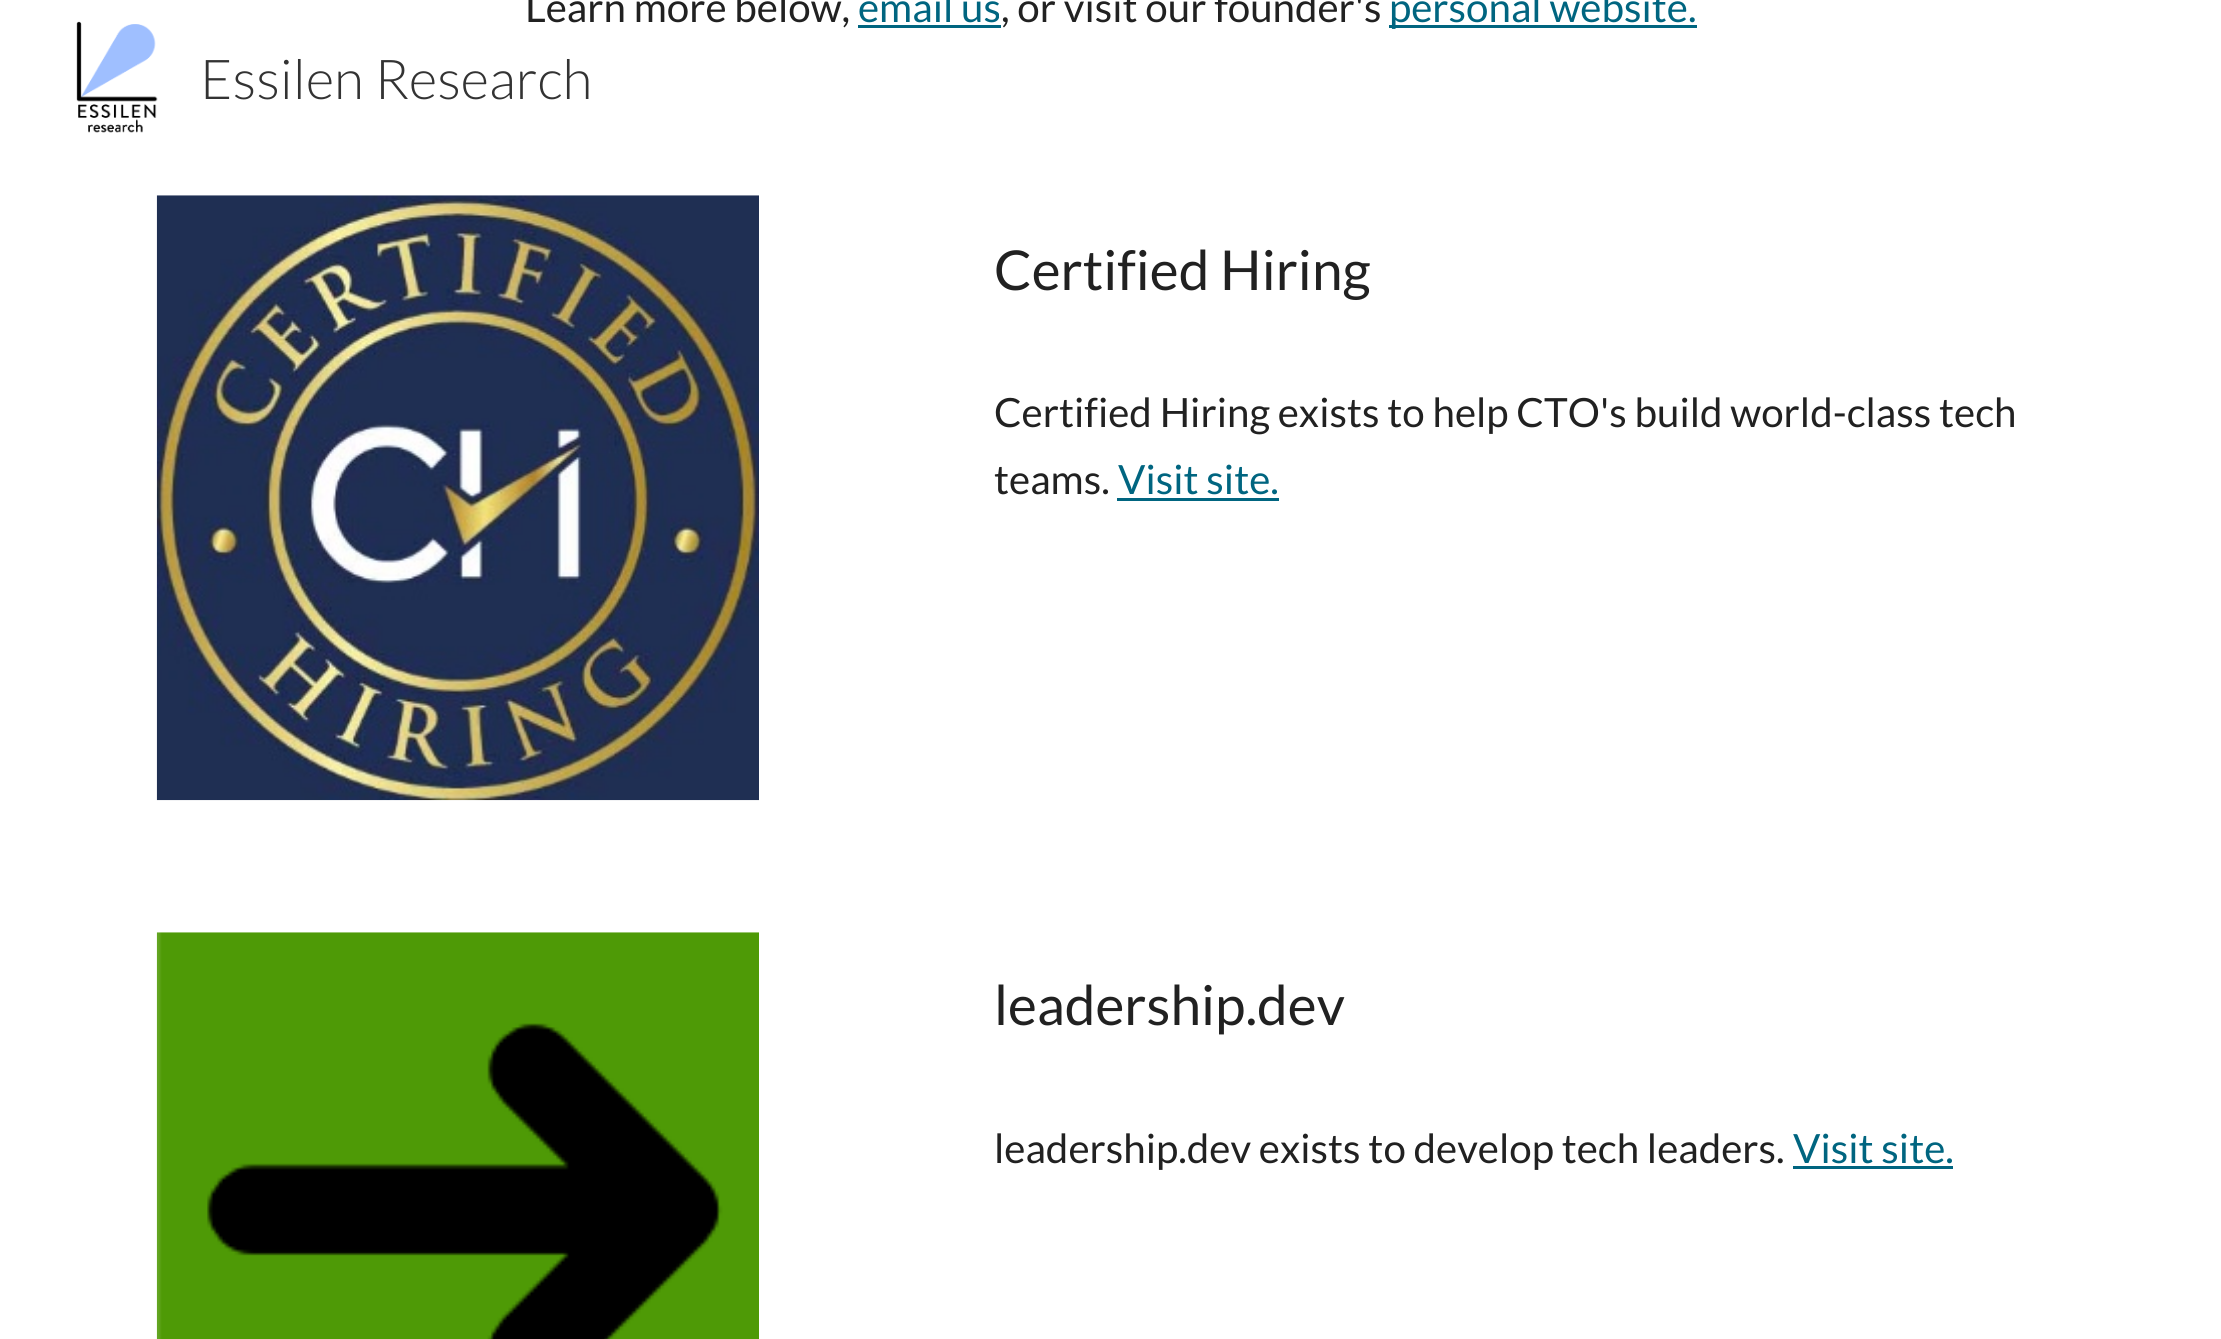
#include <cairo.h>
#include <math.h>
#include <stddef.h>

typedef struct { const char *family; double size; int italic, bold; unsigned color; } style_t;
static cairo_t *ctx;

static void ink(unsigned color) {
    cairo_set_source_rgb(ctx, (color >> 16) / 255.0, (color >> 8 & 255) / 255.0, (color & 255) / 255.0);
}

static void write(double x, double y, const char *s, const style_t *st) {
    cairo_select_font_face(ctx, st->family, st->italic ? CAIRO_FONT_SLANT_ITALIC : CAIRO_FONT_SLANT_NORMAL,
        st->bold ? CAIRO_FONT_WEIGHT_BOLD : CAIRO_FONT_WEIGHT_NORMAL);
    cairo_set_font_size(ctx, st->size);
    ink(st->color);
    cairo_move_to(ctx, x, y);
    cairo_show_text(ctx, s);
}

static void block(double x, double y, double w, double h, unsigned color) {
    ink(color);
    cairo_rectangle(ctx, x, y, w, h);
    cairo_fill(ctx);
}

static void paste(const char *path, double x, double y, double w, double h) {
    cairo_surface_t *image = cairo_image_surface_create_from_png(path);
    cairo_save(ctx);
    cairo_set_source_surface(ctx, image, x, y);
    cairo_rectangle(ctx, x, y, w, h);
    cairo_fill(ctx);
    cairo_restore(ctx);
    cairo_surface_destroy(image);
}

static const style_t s1 = {"Lato Light", 55, 0, 0, 0x333333};
static const style_t s2 = {"Lato", 40.3, 0, 0, 0x212121};
static const style_t s3 = {"Lato", 40.3, 0, 0, 0x006580};
static const style_t s4 = {"Lato", 55, 0, 0, 0x212121};

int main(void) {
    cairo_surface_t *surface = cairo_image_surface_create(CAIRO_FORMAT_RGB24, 2221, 1339);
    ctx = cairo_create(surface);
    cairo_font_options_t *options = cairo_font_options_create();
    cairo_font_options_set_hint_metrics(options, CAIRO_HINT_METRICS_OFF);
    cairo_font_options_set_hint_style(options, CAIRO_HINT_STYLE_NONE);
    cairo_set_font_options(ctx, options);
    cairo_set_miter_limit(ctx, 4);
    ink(0xffffff);
    cairo_paint(ctx);
    paste("pic1.png", 76, 21, 82, 112);
    write(200, 99, "Essilen Research", &s1);
    write(525, 22, "Learn more below,", &s2);
    write(858, 22, "email us", &s3);
    block(858, 25, 143, 3, 0x006580);
    write(1001, 22, ", or visit our founder's", &s2);
    block(1389, 25, 308, 3, 0x006580);
    write(1389, 22, "personal website.", &s3);
    paste("pic2.png", 156, 195, 603, 606);
    write(994, 290, "Certified Hiring", &s4);
    write(994, 427, "Certified Hiring exists to help CTO's build world-class tech", &s2);
    write(994, 494, "teams.", &s2);
    write(1118, 494, "Visit site.", &s3);
    block(1117, 498, 162, 3, 0x006580);
    paste("pic3.png", 156, 932, 603, 407);
    write(994, 1025, "leadership.dev", &s4);
    write(994, 1163, "leadership.dev exists to develop tech leaders.", &s2);
    write(1793, 1163, "Visit site.", &s3);
    block(1793, 1166, 160, 3, 0x006580);
    cairo_surface_write_to_png(surface, "screenshot.png");
    cairo_font_options_destroy(options);
    cairo_destroy(ctx);
    cairo_surface_destroy(surface);
    return 0;
}
